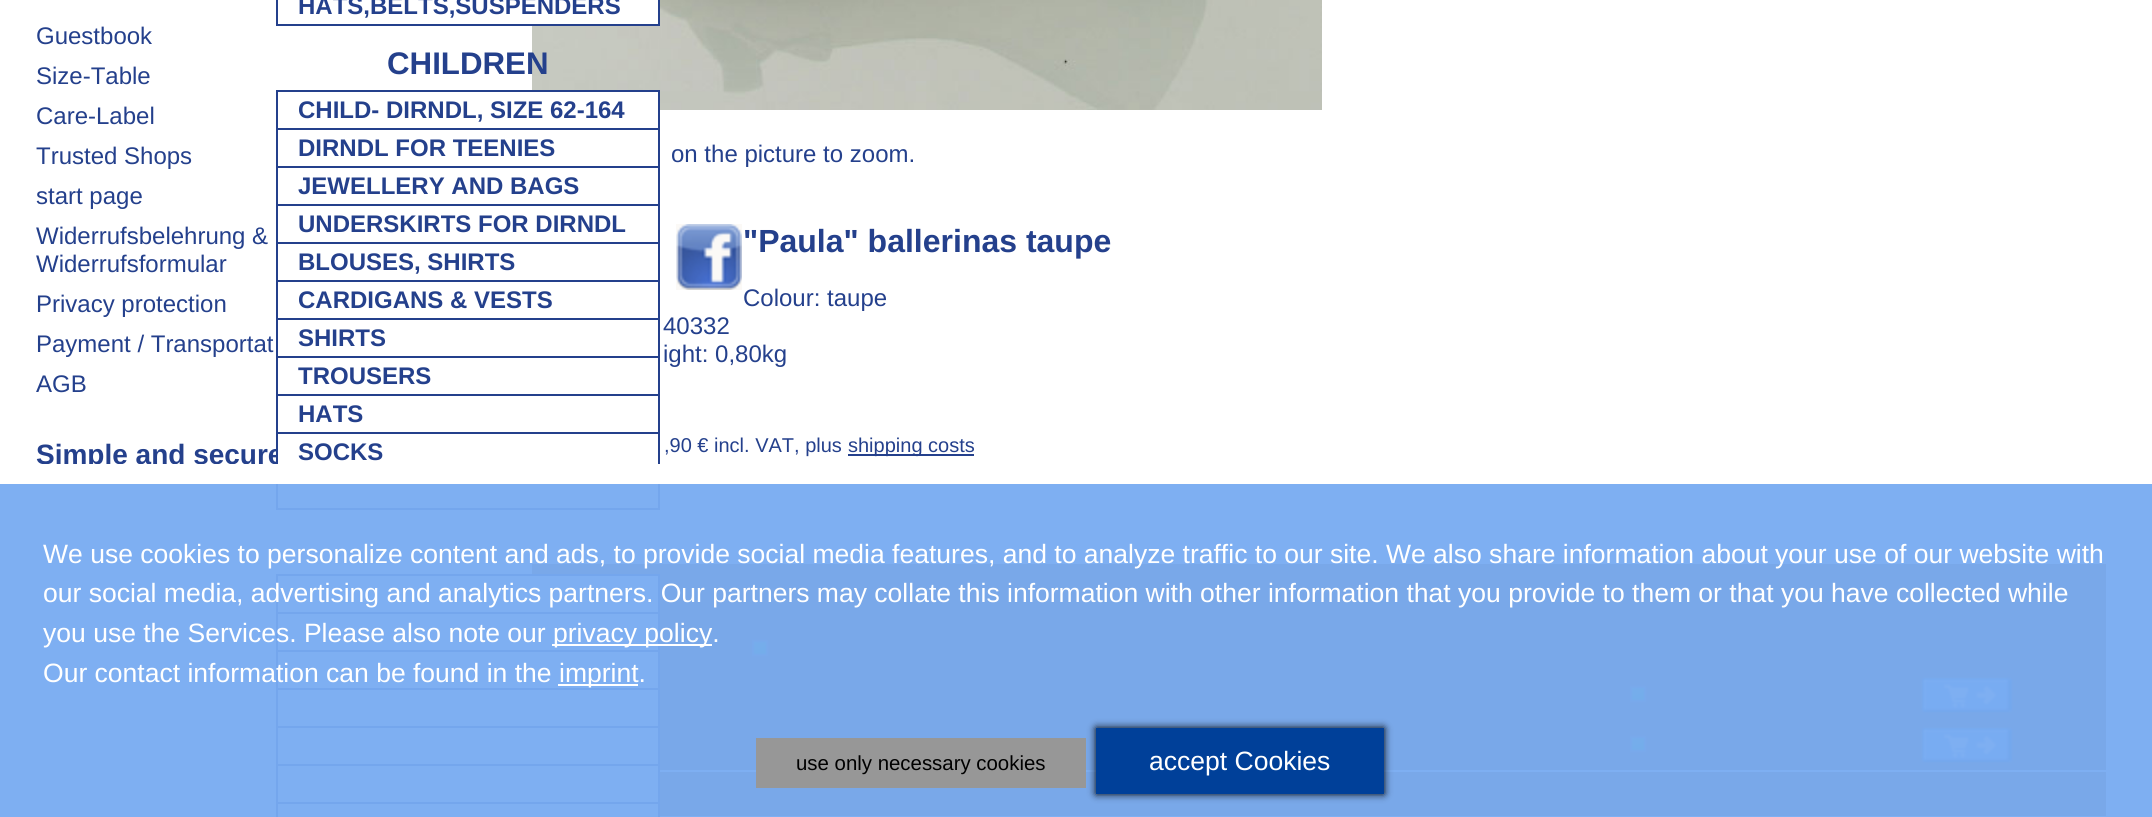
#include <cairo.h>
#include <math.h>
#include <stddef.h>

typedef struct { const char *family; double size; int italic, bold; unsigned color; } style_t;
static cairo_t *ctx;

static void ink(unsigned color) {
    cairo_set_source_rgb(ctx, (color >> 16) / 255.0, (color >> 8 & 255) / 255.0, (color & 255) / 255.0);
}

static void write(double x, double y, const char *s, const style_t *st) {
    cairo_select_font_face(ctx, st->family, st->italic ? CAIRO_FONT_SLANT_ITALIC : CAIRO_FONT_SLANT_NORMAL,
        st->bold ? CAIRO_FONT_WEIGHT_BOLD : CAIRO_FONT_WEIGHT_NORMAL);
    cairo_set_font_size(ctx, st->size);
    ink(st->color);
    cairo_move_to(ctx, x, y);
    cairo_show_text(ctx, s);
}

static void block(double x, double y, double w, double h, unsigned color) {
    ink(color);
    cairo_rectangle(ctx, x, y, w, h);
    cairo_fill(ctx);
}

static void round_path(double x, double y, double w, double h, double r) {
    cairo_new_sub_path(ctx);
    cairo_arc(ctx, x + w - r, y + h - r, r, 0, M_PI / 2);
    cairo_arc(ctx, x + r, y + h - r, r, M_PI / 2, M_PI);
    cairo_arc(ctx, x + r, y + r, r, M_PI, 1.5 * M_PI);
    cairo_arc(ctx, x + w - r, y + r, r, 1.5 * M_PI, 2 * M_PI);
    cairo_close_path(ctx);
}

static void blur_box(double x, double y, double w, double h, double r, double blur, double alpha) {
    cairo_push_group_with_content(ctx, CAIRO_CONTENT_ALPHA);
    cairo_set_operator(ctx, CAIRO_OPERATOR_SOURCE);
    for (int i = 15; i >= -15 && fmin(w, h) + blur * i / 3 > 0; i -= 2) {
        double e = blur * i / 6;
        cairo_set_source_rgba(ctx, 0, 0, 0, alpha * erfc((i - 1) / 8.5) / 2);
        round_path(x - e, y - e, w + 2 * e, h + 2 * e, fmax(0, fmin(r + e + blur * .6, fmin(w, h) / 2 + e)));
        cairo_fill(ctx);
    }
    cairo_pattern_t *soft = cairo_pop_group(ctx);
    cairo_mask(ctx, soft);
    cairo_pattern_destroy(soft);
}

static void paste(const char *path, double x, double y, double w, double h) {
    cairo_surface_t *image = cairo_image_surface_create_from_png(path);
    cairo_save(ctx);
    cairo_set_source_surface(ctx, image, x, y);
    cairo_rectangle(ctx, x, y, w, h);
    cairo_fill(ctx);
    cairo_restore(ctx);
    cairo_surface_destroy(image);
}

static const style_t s1 = {"Liberation Sans", 24, 0, 1, 0x24408c};
static const style_t s2 = {"Liberation Sans", 31.25, 0, 1, 0x24408c};
static const style_t s3 = {"Liberation Sans", 28, 0, 1, 0x24408c};
static const style_t s4 = {"Liberation Sans", 24, 0, 0, 0x24408c};
static const style_t s5 = {"Liberation Sans", 32, 0, 1, 0x24408c};
static const style_t s6 = {"Liberation Sans", 20, 0, 0, 0x24408c};
static const style_t s7 = {"Liberation Sans", 26.52, 0, 0, 0xffffff};
static const style_t s8 = {"Liberation Sans", 20.4, 0, 0, 0x000000};

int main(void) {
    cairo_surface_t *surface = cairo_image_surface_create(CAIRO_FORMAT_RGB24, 2152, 817);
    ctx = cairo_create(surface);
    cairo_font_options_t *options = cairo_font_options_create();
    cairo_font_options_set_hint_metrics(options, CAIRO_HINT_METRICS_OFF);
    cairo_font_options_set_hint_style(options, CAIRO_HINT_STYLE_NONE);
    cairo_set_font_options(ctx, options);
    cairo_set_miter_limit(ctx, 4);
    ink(0xffffff);
    cairo_paint(ctx);
    paste("pic1.png", 532, 0, 790, 110);
    block(532, 0, 126, 24, 0xffffff);
    cairo_rectangle(ctx, 277, -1, 382, 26);
    ink(0x24408c);
    cairo_stroke(ctx);
    write(298, 14, "HATS,BELTS,SUSPENDERS", &s1);
    write(387, 74, "CHILDREN", &s2);
    block(532, 92, 126, 18, 0xffffff);
    cairo_rectangle(ctx, 277, 91, 382, 38);
    ink(0x24408c);
    cairo_stroke(ctx);
    write(298, 118, "CHILD- DIRNDL, SIZE 62-164", &s1);
    cairo_rectangle(ctx, 277, 129, 382, 38);
    cairo_stroke(ctx);
    write(298, 156, "DIRNDL FOR TEENIES", &s1);
    cairo_rectangle(ctx, 277, 167, 382, 38);
    cairo_stroke(ctx);
    write(298, 194, "JEWELLERY AND BAGS", &s1);
    cairo_rectangle(ctx, 277, 205, 382, 38);
    cairo_stroke(ctx);
    write(298, 232, "UNDERSKIRTS FOR DIRNDL", &s1);
    cairo_rectangle(ctx, 277, 243, 382, 38);
    cairo_stroke(ctx);
    write(298, 270, "BLOUSES, SHIRTS", &s1);
    cairo_rectangle(ctx, 277, 281, 382, 38);
    cairo_stroke(ctx);
    write(298, 308, "CARDIGANS & VESTS", &s1);
    cairo_rectangle(ctx, 277, 319, 382, 38);
    cairo_stroke(ctx);
    write(298, 346, "SHIRTS", &s1);
    cairo_rectangle(ctx, 277, 357, 382, 38);
    cairo_stroke(ctx);
    write(298, 384, "TROUSERS", &s1);
    cairo_rectangle(ctx, 277, 395, 382, 38);
    cairo_stroke(ctx);
    write(298, 422, "HATS", &s1);
    write(36, 464, "Simple and secure", &s3);
    block(278, 449, 5, 15, 0xffffff);
    cairo_rectangle(ctx, 277, 433, 382, 38);
    ink(0x24408c);
    cairo_stroke(ctx);
    write(298, 460, "SOCKS", &s1);
    cairo_rectangle(ctx, 277, 471, 382, 38);
    cairo_stroke(ctx);
    block(532, 564, 1574, 252, 0x966a39);
    block(532, 576, 126, 36, 0xffffff);
    cairo_rectangle(ctx, 277, 575, 382, 38);
    ink(0x24408c);
    cairo_stroke(ctx);
    block(532, 614, 126, 36, 0xffffff);
    cairo_rectangle(ctx, 277, 613, 382, 38);
    ink(0x24408c);
    cairo_stroke(ctx);
    block(532, 652, 126, 36, 0xffffff);
    cairo_rectangle(ctx, 277, 651, 382, 38);
    ink(0x24408c);
    cairo_stroke(ctx);
    block(532, 690, 126, 36, 0xffffff);
    cairo_rectangle(ctx, 277, 689, 382, 38);
    ink(0x24408c);
    cairo_stroke(ctx);
    block(532, 728, 126, 36, 0xffffff);
    cairo_rectangle(ctx, 277, 727, 382, 38);
    ink(0x24408c);
    cairo_stroke(ctx);
    block(532, 766, 126, 36, 0xffffff);
    cairo_rectangle(ctx, 277, 765, 382, 38);
    ink(0x24408c);
    cairo_stroke(ctx);
    block(532, 804, 126, 12, 0xffffff);
    cairo_rectangle(ctx, 277, 803, 382, 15);
    ink(0x24408c);
    cairo_stroke(ctx);
    write(36, 44, "Guestbook", &s4);
    write(36, 84, "Size-Table", &s4);
    write(36, 124, "Care-Label", &s4);
    write(36, 164, "Trusted Shops", &s4);
    write(36, 204, "start page", &s4);
    write(36, 244, "Widerrufsbelehrung &", &s4);
    write(36, 272, "Widerrufsformular", &s4);
    write(36, 312, "Privacy protection", &s4);
    write(36, 352, "Payment / Transportat", &s4);
    write(36, 392, "AGB", &s4);
    write(671, 162, "on the picture to zoom.", &s4);
    paste("pic2.png", 676, 224, 66, 66);
    write(743, 252, "\"Paula\" ballerinas taupe", &s5);
    write(743, 306, "Colour: taupe", &s4);
    write(663, 334, "40332", &s4);
    write(663, 362, "ight: 0,80kg", &s4);
    write(664, 452, ",90 € incl. VAT, plus", &s6);
    block(848, 454, 126, 2, 0x24408c);
    write(848, 452, "shipping costs", &s6);
    paste("pic3.png", 752, 639, 17, 18);
    paste("pic3.png", 1630, 685, 17, 18);
    paste("pic4.png", 1921, 677, 92, 36);
    paste("pic3.png", 1630, 735, 17, 18);
    paste("pic4.png", 1921, 727, 92, 36);
    block(660, 770, 1448, 2, 0xffffff);
    cairo_set_source_rgba(ctx, 0, 0, 0, 0.5);
    cairo_rectangle(ctx, 0, 484, 2152, 333);
    cairo_fill(ctx);
    block(42, 464, 618, 20, 0xffffff);
    cairo_set_source_rgba(ctx, 0.498, 0.71, 1, 0.9);
    cairo_rectangle(ctx, 0, 484, 2152, 333);
    cairo_fill(ctx);
    write(43, 563, "We use cookies to personalize content and ads, to provide social media features, and to analyze traffic to our site. We also share information about your use of our website with", &s7);
    write(43, 602, "our social media, advertising and analytics partners. Our partners may collate this information with other information that you provide to them or that you have collected while", &s7);
    write(43, 642, "you use the Services. Please also note our", &s7);
    block(552, 644, 160, 2, 0xffffff);
    write(553, 642, "privacy policy.", &s7);
    write(43, 682, "Our contact information can be found in the", &s7);
    block(558, 684, 80, 2, 0xffffff);
    write(559, 682, "imprint.", &s7);
    block(756, 738, 330, 50, 0x979797);
    write(796, 770, "use only necessary cookies", &s8);
    ink(0x000000);
    blur_box(1096, 728, 288, 66, 0, 4, 1);
    block(1096, 728, 288, 66, 0x004099);
    write(1149, 770, "accept Cookies", &s7);
    cairo_surface_write_to_png(surface, "screenshot.png");
    cairo_font_options_destroy(options);
    cairo_destroy(ctx);
    cairo_surface_destroy(surface);
    return 0;
}
